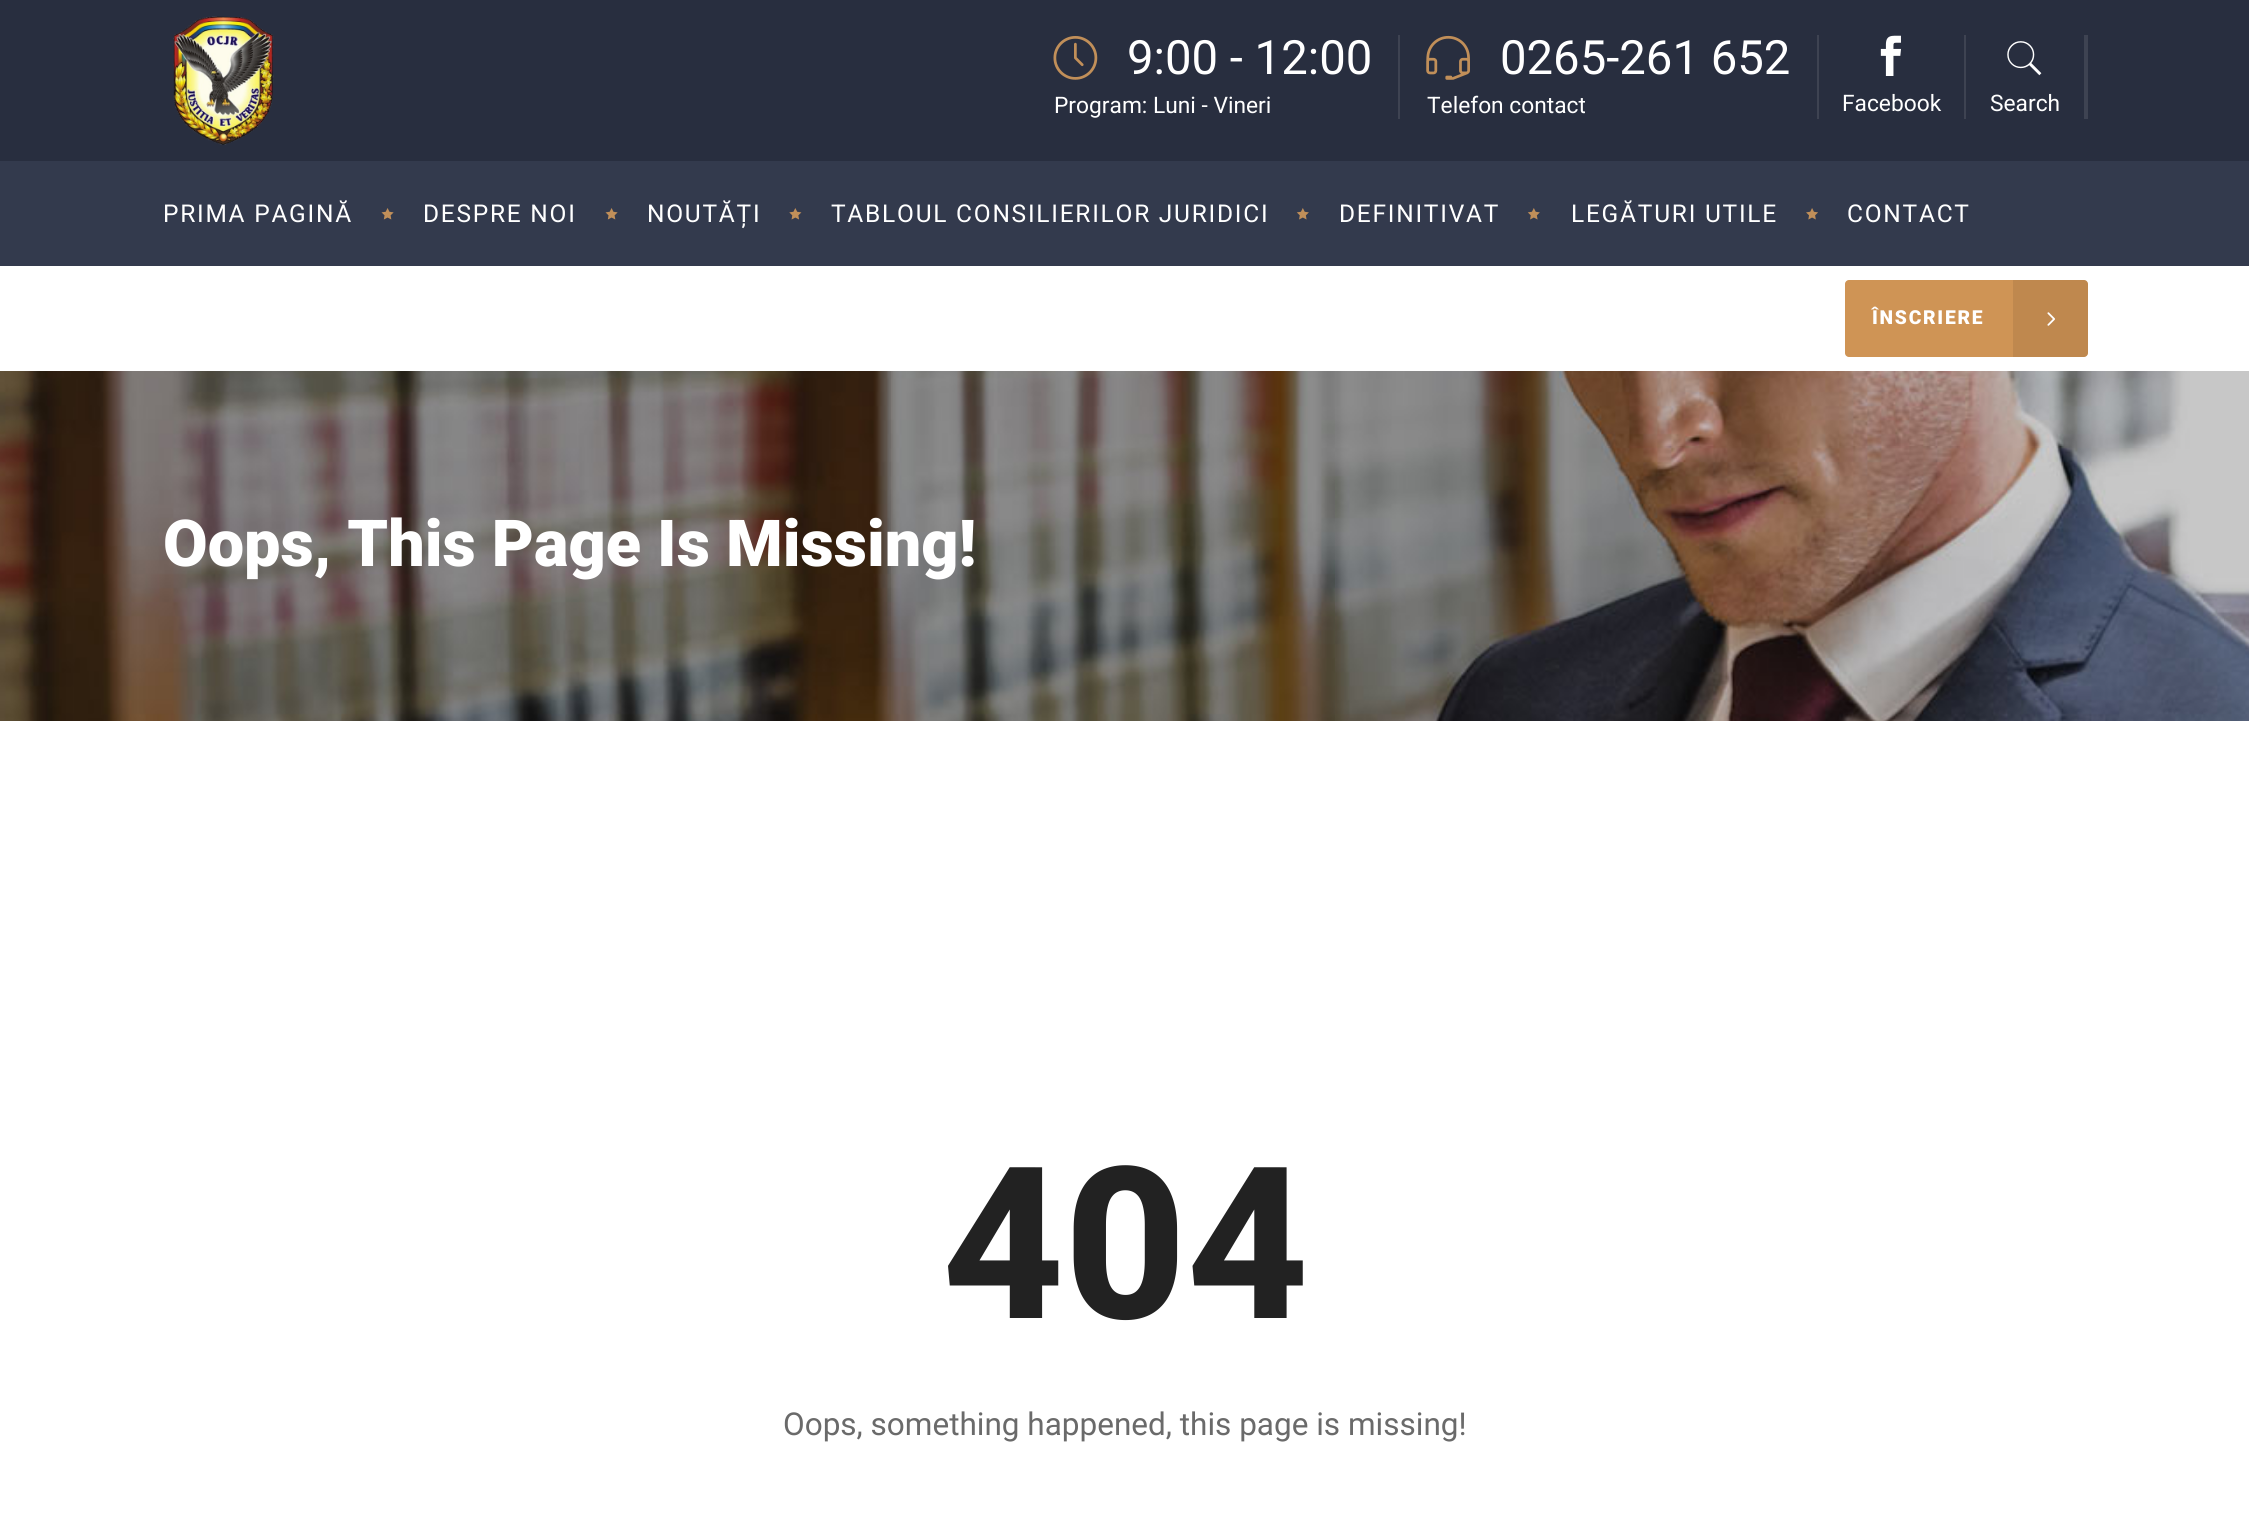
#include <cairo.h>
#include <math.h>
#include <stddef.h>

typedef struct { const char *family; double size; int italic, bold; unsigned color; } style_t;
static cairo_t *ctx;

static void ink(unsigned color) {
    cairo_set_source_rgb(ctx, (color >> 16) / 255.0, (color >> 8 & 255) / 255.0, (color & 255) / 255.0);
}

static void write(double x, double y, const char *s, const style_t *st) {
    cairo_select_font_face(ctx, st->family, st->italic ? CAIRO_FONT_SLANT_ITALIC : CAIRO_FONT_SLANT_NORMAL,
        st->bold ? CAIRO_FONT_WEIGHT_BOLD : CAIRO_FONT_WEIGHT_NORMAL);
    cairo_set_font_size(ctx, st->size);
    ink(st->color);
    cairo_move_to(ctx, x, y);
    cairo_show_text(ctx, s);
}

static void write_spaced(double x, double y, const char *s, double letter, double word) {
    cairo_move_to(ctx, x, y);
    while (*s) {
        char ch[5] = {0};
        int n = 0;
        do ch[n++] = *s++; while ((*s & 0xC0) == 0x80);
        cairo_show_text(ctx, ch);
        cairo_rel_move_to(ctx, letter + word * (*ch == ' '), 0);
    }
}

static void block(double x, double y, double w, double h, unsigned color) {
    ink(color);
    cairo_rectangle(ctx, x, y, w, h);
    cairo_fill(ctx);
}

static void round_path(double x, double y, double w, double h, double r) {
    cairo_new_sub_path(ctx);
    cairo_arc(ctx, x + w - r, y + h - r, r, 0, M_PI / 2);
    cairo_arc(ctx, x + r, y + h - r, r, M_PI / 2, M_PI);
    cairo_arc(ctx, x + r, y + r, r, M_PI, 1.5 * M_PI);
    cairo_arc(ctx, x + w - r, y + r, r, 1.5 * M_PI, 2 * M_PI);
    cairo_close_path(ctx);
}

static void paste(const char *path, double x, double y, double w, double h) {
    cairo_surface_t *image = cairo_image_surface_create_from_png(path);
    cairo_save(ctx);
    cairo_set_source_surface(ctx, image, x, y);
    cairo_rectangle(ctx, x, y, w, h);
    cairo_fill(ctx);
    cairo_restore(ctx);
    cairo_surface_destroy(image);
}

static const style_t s1 = {"Roboto", 47.25, 0, 0, 0xffffff};
static const style_t s2 = {"Roboto", 22.75, 0, 0, 0xffffff};
static const style_t s3 = {"Roboto Black", 64.75, 0, 0, 0xffffff};
static const style_t s4 = {"Roboto ExtraBold", 212, 0, 0, 0x222222};
static const style_t s5 = {"Roboto", 31.5, 0, 0, 0x6a6a6a};

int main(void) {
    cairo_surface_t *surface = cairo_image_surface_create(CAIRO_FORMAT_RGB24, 2249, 1515);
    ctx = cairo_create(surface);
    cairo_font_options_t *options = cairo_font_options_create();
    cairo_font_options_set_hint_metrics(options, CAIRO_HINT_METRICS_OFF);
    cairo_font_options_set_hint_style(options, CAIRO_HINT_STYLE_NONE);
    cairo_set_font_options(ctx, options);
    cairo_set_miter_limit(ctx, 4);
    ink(0xffffff);
    cairo_paint(ctx);
    block(0, 0, 2249, 161, 0x282e3f);
    paste("pic1.png", 173, 16, 101, 129);
    paste("pic2.png", 1053, 36, 45, 44);
    write(1127, 74, "9:00 - 12:00", &s1);
    write(1054, 113, "Program: Luni - Vineri", &s2);
    block(1398, 35, 2, 84, 0x3e4352);
    paste("pic3.png", 1426, 35, 44, 45);
    write(1500, 74, "0265-261 652", &s1);
    write(1427, 113, "Telefon contact", &s2);
    block(1817, 35, 2, 84, 0x3e4352);
    paste("pic4.png", 1880, 35, 21, 41);
    write(1842, 111, "Facebook", &s2);
    block(1964, 35, 2, 84, 0x3e4352);
    paste("pic5.png", 2007, 41, 35, 35);
    write(1990, 111, "Search", &s2);
    block(2084, 35, 4, 84, 0x3e4352);
    block(0, 161, 2249, 105, 0x333a4d);
    cairo_set_font_size(ctx, 24.5);
    ink(0xffffff);
    write_spaced(163, 222, "PRIMA PAGINĂ", 1.75, 0);
    paste("pic6.png", 381, 208, 13, 12);
    write_spaced(423, 222, "DESPRE NOI", 1.75, 0);
    paste("pic6.png", 605, 208, 13, 12);
    write_spaced(647, 222, "NOUTĂȚI", 1.75, 0);
    paste("pic7.png", 789, 208, 13, 12);
    write_spaced(831, 222, "TABLOUL CONSILIERILOR JURIDICI", 1.75, 0);
    paste("pic8.png", 1296, 208, 13, 12);
    write_spaced(1339, 222, "DEFINITIVAT", 1.75, 0);
    paste("pic8.png", 1527, 208, 13, 12);
    write_spaced(1571, 222, "LEGĂTURI UTILE", 1.75, 0);
    paste("pic9.png", 1806, 208, 12, 12);
    write_spaced(1847, 222, "CONTACT", 1.75, 0);
    ink(0xcf9455);
    round_path(1845, 280, 243, 77, 4);
    cairo_fill(ctx);
    cairo_select_font_face(ctx, "Roboto Black", CAIRO_FONT_SLANT_NORMAL, CAIRO_FONT_WEIGHT_NORMAL);
    cairo_set_font_size(ctx, 19.25);
    ink(0xffffff);
    write_spaced(1872, 324, "ÎNSCRIERE", 1.75, 0);
    cairo_set_source_rgba(ctx, 0, 0, 0, 0.08);
    cairo_new_path(ctx);
    cairo_move_to(ctx, 2013, 280);
    cairo_line_to(ctx, 2084, 280);
    cairo_curve_to(ctx, 2086, 280, 2088, 282, 2088, 284);
    cairo_line_to(ctx, 2088, 353);
    cairo_curve_to(ctx, 2088, 355, 2086, 357, 2084, 357);
    cairo_line_to(ctx, 2013, 357);
    cairo_close_path(ctx);
    cairo_fill(ctx);
    paste("pic10.png", 2047, 312, 8, 14);
    paste("pic11.png", 0, 371, 2249, 350);
    write(163, 566, "Oops, This Page Is Missing!", &s3);
    write(942, 1318, "404", &s4);
    write(783, 1435, "Oops, something happened, this page is missing!", &s5);
    cairo_surface_write_to_png(surface, "screenshot.png");
    cairo_font_options_destroy(options);
    cairo_destroy(ctx);
    cairo_surface_destroy(surface);
    return 0;
}
